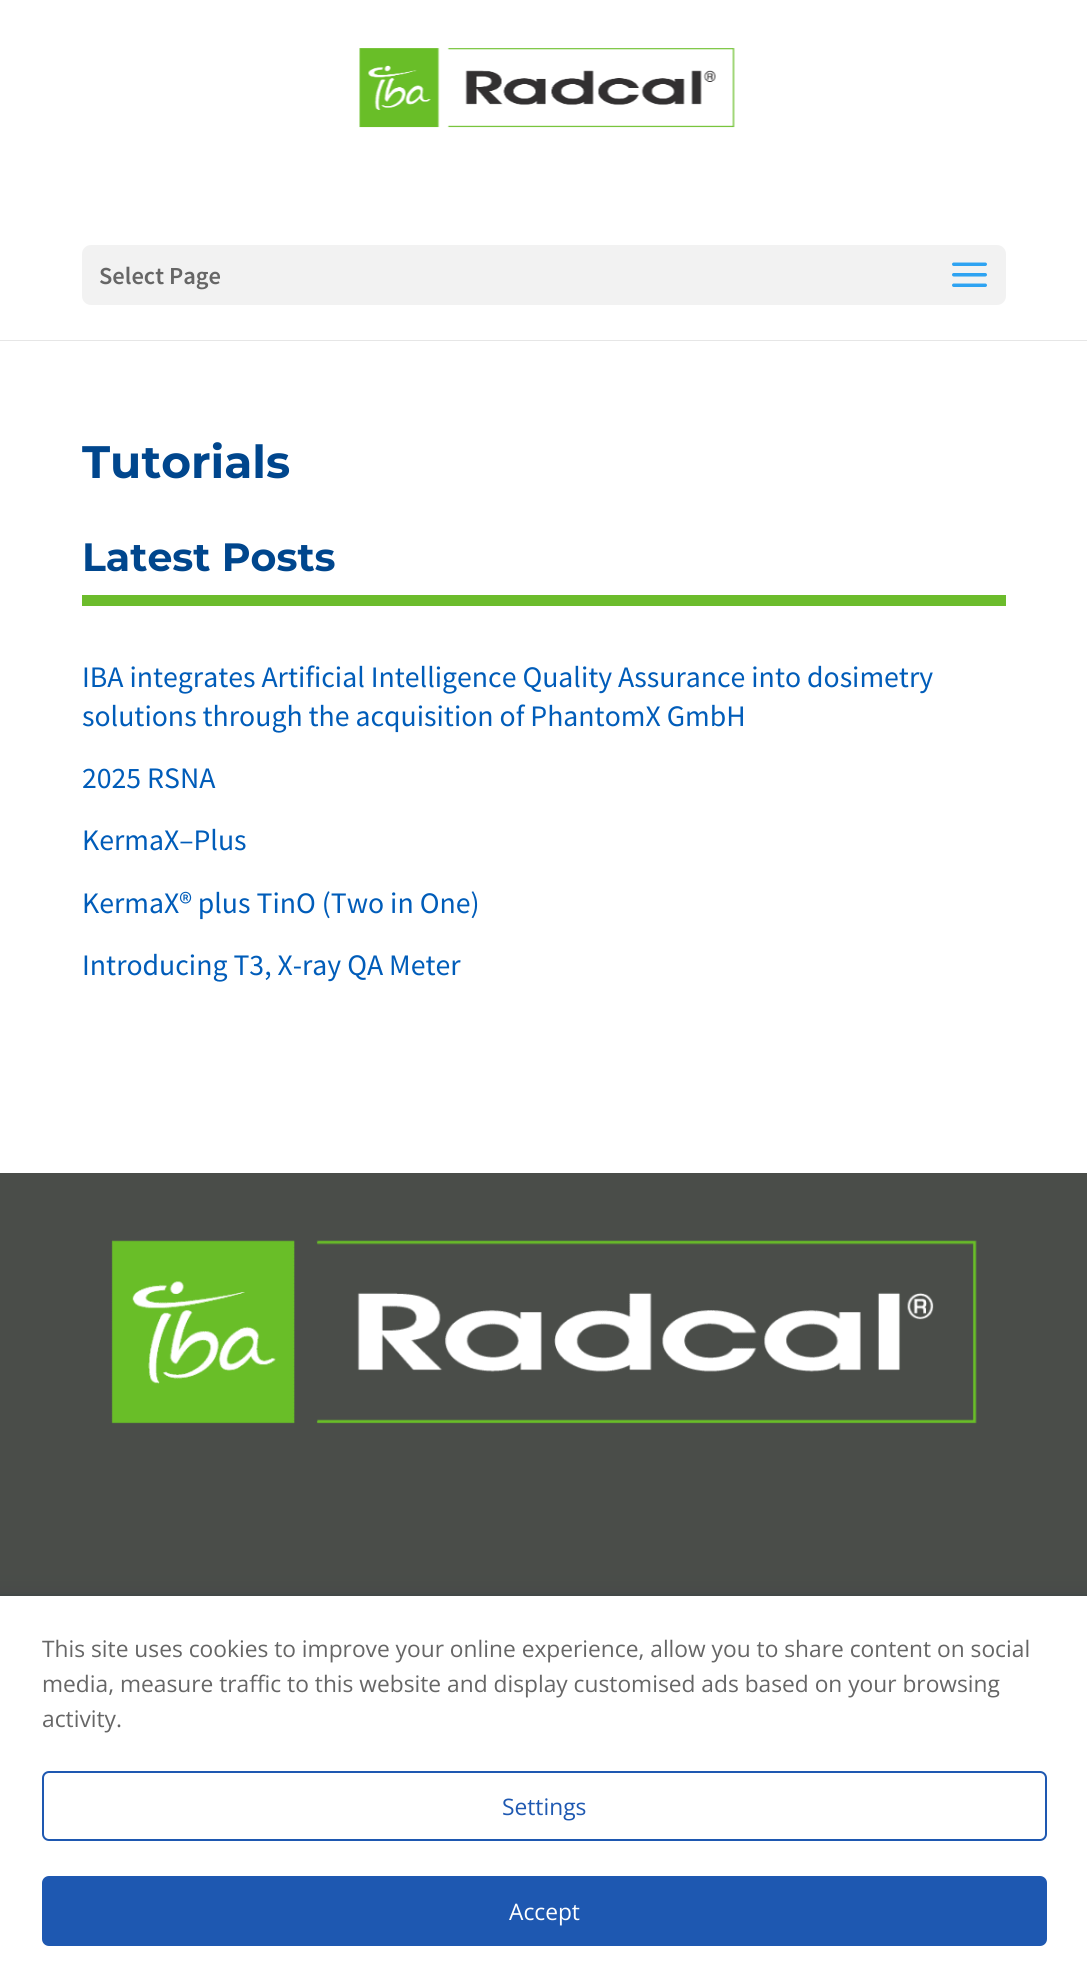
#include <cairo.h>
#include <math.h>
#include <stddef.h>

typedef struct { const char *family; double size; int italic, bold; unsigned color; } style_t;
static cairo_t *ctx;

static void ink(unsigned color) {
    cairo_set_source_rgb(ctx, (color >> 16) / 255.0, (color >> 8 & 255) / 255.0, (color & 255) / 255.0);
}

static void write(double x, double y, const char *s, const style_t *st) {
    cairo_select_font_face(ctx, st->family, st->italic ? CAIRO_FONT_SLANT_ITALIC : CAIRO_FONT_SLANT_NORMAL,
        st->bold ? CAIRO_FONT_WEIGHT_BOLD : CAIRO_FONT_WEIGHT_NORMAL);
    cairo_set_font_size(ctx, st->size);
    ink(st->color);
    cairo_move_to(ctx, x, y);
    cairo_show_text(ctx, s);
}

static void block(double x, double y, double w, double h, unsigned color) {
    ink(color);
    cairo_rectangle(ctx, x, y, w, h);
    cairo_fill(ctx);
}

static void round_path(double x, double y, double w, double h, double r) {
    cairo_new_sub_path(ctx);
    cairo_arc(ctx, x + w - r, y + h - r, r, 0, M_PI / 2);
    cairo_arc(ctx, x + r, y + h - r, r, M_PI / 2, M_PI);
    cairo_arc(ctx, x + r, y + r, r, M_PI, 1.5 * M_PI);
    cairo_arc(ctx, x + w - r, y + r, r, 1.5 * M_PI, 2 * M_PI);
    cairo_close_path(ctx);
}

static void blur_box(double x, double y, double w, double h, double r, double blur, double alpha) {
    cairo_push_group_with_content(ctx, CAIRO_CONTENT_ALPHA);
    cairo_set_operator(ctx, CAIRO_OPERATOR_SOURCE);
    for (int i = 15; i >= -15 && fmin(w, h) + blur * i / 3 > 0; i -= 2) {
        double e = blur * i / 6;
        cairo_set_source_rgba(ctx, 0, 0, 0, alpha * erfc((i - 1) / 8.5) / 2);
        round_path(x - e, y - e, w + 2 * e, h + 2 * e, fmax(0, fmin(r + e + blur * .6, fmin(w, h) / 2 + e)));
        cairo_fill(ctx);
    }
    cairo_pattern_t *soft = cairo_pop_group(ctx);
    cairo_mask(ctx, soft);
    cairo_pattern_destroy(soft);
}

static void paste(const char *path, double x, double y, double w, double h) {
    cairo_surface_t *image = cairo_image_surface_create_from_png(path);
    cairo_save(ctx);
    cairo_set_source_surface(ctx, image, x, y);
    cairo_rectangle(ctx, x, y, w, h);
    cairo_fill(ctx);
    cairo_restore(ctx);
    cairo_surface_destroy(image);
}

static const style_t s1 = {"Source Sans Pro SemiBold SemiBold", 24.5, 0, 0, 0x666666};
static const style_t s2 = {"Montserrat", 45.5, 0, 1, 0x00468d};
static const style_t s3 = {"Montserrat", 39.5, 0, 1, 0x00468d};
static const style_t s4 = {"Source Sans Pro", 29.75, 0, 0, 0x005cb9};
static const style_t s5 = {"Open Sans", 22.75, 0, 0, 0x666666};
static const style_t s6 = {"Open Sans", 22.75, 0, 0, 0x1e58b1};
static const style_t s7 = {"Open Sans", 22.75, 0, 0, 0xffffff};

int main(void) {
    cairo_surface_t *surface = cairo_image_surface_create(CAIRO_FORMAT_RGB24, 1087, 1981);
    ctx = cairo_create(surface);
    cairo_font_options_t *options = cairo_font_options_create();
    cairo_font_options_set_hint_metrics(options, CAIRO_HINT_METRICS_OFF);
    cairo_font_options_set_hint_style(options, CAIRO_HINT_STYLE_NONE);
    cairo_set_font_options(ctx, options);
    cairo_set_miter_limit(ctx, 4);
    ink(0xffffff);
    cairo_paint(ctx);
    ink(0xe6e6e6);
    cairo_new_path(ctx);
    cairo_move_to(ctx, 0, 340);
    cairo_line_to(ctx, 0, 341);
    cairo_line_to(ctx, 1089, 341);
    cairo_line_to(ctx, 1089, 2);
    cairo_line_to(ctx, 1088, 2);
    cairo_line_to(ctx, 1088, 340);
    cairo_close_path(ctx);
    cairo_fill(ctx);
    paste("pic1.png", 359, 48, 376, 80);
    ink(0xf2f2f2);
    round_path(82, 245, 924, 60, 9);
    cairo_fill(ctx);
    write(99, 284, "Select Page", &s1);
    paste("pic2.png", 952, 262, 35, 25);
    write(82, 478, "Tutorials", &s2);
    block(82, 595, 924, 11, 0x6cbc2c);
    write(82, 571, "Latest Posts", &s3);
    write(82, 687, "IBA integrates Artificial Intelligence Quality Assurance into dosimetry", &s4);
    write(82, 726, "solutions through the acquisition of PhantomX GmbH", &s4);
    write(82, 788, "2025 RSNA", &s4);
    write(82, 850, "KermaX–Plus", &s4);
    write(82, 913, "KermaX® plus TinO (Two in One)", &s4);
    write(82, 975, "Introducing T3, X-ray QA Meter", &s4);
    block(0, 1173, 1087, 423, 0x4a4d49);
    paste("pic3.png", 111, 1240, 866, 184);
    ink(0x242f42);
    blur_box(-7, 1607, 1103, 364, 0, 17.5, 0.31);
    cairo_rectangle(ctx, -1, 1595, 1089, 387);
    cairo_set_source_rgba(ctx, 0.141, 0.184, 0.259, 0.08);
    cairo_stroke(ctx);
    block(0, 1596, 1087, 385, 0xffffff);
    write(42, 1657, "This site uses cookies to improve your online experience, allow you to share content on social", &s5);
    write(42, 1692, "media, measure traffic to this website and display customised ads based on your browsing", &s5);
    write(42, 1727, "activity.", &s5);
    round_path(43, 1772, 1003, 68, 6);
    ink(0x1e58b1);
    cairo_stroke(ctx);
    write(502, 1815, "Settings", &s6);
    round_path(43, 1877, 1003, 68, 6);
    cairo_fill_preserve(ctx);
    cairo_stroke(ctx);
    write(509, 1920, "Accept", &s7);
    cairo_surface_write_to_png(surface, "screenshot.png");
    cairo_font_options_destroy(options);
    cairo_destroy(ctx);
    cairo_surface_destroy(surface);
    return 0;
}
